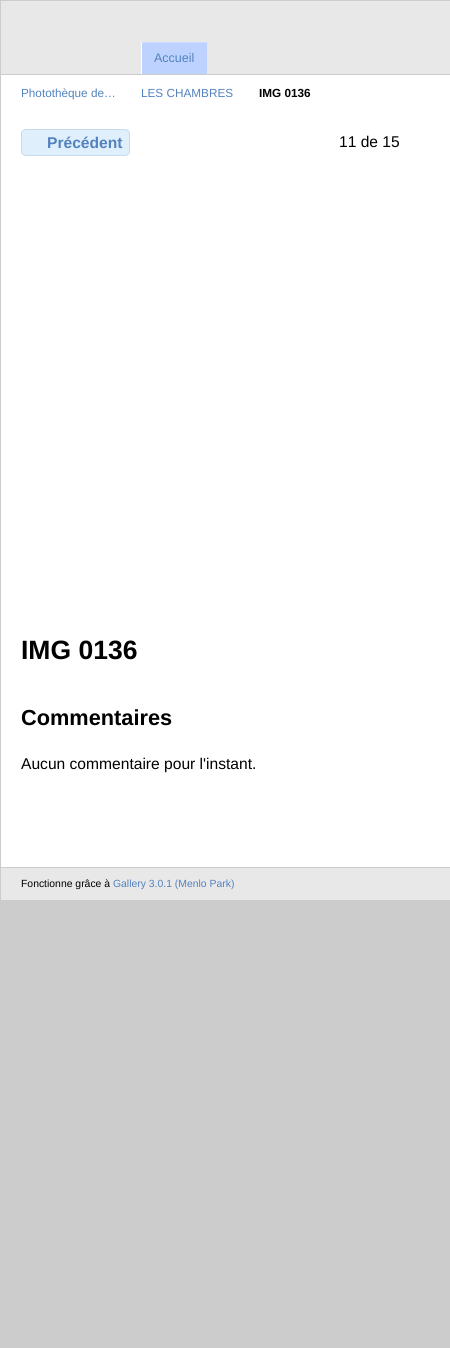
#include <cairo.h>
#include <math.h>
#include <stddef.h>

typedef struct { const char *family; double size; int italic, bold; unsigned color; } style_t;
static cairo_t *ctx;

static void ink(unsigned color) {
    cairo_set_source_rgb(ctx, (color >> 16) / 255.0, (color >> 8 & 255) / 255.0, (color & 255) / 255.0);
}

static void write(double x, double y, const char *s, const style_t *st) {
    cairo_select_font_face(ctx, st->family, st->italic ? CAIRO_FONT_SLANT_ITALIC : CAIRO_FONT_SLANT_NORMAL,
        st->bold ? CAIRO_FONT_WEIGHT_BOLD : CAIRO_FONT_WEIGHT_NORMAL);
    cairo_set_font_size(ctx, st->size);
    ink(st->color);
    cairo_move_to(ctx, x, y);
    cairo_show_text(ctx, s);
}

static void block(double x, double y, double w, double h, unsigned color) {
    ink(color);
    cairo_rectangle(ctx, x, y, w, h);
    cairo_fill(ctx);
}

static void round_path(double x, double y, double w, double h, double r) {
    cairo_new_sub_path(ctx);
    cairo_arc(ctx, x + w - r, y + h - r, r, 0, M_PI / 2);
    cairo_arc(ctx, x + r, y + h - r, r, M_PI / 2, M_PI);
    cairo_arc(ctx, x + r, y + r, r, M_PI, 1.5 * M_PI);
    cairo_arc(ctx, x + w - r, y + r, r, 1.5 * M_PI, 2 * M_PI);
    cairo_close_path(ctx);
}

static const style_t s1 = {"Liberation Sans", 12.5, 0, 0, 0x5382bf};
static const style_t s2 = {"Liberation Sans", 11.75, 0, 0, 0x5382bf};
static const style_t s3 = {"Liberation Sans", 11.75, 0, 1, 0x000000};
static const style_t s4 = {"Liberation Sans", 15.6, 0, 1, 0x5382bf};
static const style_t s5 = {"Liberation Sans", 15.6, 0, 0, 0x000000};
static const style_t s6 = {"Liberation Sans", 26.5, 0, 1, 0x000000};
static const style_t s7 = {"Liberation Sans", 21.75, 0, 1, 0x000000};
static const style_t s8 = {"Liberation Sans", 10.4, 0, 0, 0x000000};
static const style_t s9 = {"Liberation Sans", 10.4, 0, 0, 0x5382bf};

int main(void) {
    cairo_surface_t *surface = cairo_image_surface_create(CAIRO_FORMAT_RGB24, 450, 1348);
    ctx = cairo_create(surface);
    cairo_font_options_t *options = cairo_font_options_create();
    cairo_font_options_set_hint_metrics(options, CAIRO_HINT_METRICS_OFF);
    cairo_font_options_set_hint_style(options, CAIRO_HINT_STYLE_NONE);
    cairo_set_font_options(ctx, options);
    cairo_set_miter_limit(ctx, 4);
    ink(0xcccccc);
    cairo_paint(ctx);
    block(1, 75, 449, 792, 0xffffff);
    block(1, 1, 449, 73, 0xe8e8e8);
    block(142, 43, 65, 31, 0xbdd2ff);
    block(141, 42, 66, 1, 0xcfdeff);
    block(141, 42, 1, 32, 0xffffff);
    write(154, 62, "Accueil", &s1);
    write(21, 97, "Photothèque de…", &s2);
    write(141, 97, "LES CHAMBRES", &s2);
    write(259, 97, "IMG 0136", &s3);
    ink(0xdfeffc);
    round_path(21.5, 129.5, 108, 26, 4.5);
    cairo_fill_preserve(ctx);
    ink(0xc5dbec);
    cairo_set_line_width(ctx, 1);
    cairo_stroke(ctx);
    write(47, 148, "Précédent", &s4);
    write(339, 147, "11 de 15", &s5);
    write(21, 659, "IMG 0136", &s6);
    write(21, 725, "Commentaires", &s7);
    write(21, 769, "Aucun commentaire pour l'instant.", &s5);
    block(1, 868, 449, 32, 0xe8e8e8);
    write(21, 887, "Fonctionne grâce à", &s8);
    write(113, 887, "Gallery 3.0.1 (Menlo Park)", &s9);
    cairo_surface_write_to_png(surface, "screenshot.png");
    cairo_font_options_destroy(options);
    cairo_destroy(ctx);
    cairo_surface_destroy(surface);
    return 0;
}
